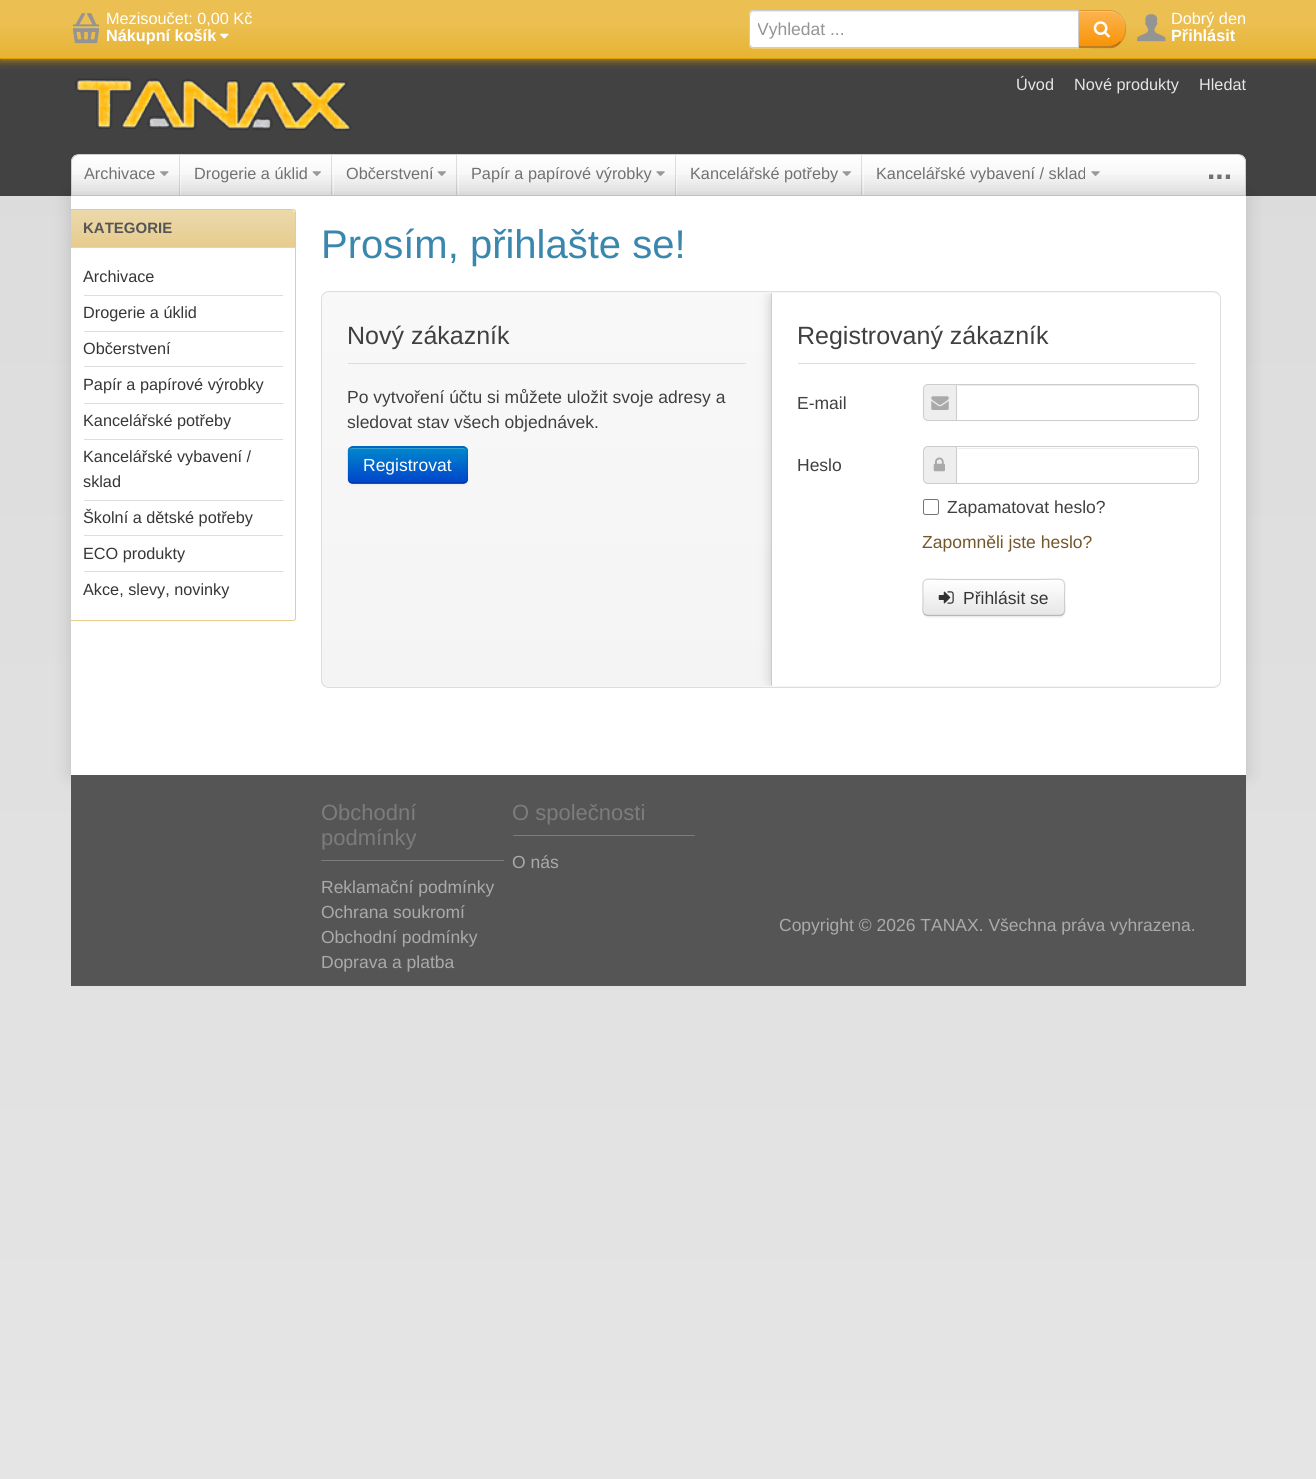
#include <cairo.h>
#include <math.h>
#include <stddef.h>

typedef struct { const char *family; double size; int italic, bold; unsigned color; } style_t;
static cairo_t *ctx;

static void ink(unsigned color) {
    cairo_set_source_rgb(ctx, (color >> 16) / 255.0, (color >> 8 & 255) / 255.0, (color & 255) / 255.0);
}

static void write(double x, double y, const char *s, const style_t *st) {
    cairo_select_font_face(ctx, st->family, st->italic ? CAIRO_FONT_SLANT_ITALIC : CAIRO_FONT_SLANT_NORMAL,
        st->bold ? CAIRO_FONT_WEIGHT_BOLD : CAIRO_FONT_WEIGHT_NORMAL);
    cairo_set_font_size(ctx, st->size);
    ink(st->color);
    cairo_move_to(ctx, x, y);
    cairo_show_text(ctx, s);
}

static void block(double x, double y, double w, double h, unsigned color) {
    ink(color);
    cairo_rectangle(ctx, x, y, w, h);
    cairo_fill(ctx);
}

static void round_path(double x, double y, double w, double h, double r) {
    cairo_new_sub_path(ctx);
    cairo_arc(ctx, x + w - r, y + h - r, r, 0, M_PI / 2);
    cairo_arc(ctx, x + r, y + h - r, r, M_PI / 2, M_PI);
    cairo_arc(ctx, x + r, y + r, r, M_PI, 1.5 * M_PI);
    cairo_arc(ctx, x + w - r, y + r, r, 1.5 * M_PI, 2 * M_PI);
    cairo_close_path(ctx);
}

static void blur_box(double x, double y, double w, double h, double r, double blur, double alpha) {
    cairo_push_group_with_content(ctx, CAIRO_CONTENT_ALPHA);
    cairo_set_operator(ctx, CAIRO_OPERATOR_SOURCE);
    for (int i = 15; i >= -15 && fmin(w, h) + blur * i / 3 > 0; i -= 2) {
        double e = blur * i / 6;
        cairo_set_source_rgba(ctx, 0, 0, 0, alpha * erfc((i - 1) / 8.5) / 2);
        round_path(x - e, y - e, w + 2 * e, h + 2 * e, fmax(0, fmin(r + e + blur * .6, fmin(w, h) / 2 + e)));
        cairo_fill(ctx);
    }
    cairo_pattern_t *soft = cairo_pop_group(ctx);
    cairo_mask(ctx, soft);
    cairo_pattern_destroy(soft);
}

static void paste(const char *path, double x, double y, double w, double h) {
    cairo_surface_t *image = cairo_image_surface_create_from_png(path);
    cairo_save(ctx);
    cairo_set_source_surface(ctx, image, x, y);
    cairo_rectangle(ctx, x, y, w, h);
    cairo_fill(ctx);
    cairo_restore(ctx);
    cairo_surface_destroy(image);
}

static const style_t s1 = {"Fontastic", 30, 0, 0, 0x949494};
static const style_t s2 = {"Liberation Sans", 16.25, 0, 0, 0xffffff};
static const style_t s3 = {"Liberation Sans", 16.25, 0, 1, 0xffffff};
static const style_t s4 = {"Liberation Sans", 17.5, 0, 0, 0x949494};
static const style_t s5 = {"Liberation Sans", 16.25, 0, 0, 0xe6e6e6};
static const style_t s6 = {"Liberation Sans", 16.25, 0, 0, 0x717171};
static const style_t s7 = {"Liberation Sans", 30, 0, 1, 0x717171};
static const style_t s8 = {"Liberation Sans", 15, 0, 1, 0x555555};
static const style_t s9 = {"Liberation Sans", 16.25, 0, 0, 0x363636};
static const style_t s10 = {"Liberation Sans", 40, 0, 0, 0x3a87ad};
static const style_t s11 = {"Liberation Sans", 25, 0, 0, 0x404040};
static const style_t s12 = {"Liberation Sans", 17.5, 0, 0, 0x404040};
static const style_t s13 = {"Liberation Sans", 17.5, 0, 0, 0xffffff};
static const style_t s14 = {"Liberation Sans", 17.5, 0, 0, 0x73562a};
static const style_t s15 = {"Liberation Sans", 17.5, 0, 0, 0x363636};
static const style_t s16 = {"Liberation Sans", 22, 0, 0, 0x7c7c7c};
static const style_t s17 = {"Liberation Sans", 17.5, 0, 0, 0xaaaaaa};

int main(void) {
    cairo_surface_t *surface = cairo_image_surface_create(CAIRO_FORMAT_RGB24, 1316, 1479);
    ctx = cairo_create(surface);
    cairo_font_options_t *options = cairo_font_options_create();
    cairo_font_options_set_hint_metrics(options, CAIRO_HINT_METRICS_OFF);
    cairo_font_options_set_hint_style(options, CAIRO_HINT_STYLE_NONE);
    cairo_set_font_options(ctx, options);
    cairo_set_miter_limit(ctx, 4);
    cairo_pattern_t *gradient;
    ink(0xffffff);
    cairo_paint(ctx);
    gradient = cairo_pattern_create_linear(658, 0, 658, 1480);
    cairo_pattern_add_color_stop_rgba(gradient, 0, 0.859, 0.859, 0.859, 1);
    cairo_pattern_add_color_stop_rgba(gradient, 1, 0.898, 0.898, 0.898, 1);
    cairo_set_source(ctx, gradient);
    cairo_pattern_destroy(gradient);
    cairo_rectangle(ctx, 0, 196, 1316, 1283);
    cairo_fill(ctx);
    block(0, 59, 1316, 137, 0x424242);
    ink(0xdea000);
    blur_box(0, 0, 1316, 59, 0, 5, 1);
    gradient = cairo_pattern_create_linear(658, 0, 658, 58);
    cairo_pattern_add_color_stop_rgba(gradient, 0, 0.922, 0.749, 0.322, 1);
    cairo_pattern_add_color_stop_rgba(gradient, 0.4, 0.922, 0.749, 0.322, 1);
    cairo_pattern_add_color_stop_rgba(gradient, 1, 0.906, 0.702, 0.196, 1);
    cairo_set_source(ctx, gradient);
    cairo_pattern_destroy(gradient);
    cairo_rectangle(ctx, 0, 0, 1316, 58);
    cairo_fill(ctx);
    block(0, 58, 1316, 1, 0xdea000);
    write(71, 43, "8", &s1);
    write(106, 24, "Mezisoučet: 0,00 Kč", &s2);
    write(106, 41, "Nákupní košík", &s3);
    paste("pic1.png", 220, 33, 9, 6);
    ink(0x000000);
    blur_box(1078, 11, 48, 38, 18, 1, 0.05);
    ink(0xfaa732);
    cairo_new_path(ctx);
    cairo_move_to(ctx, 1078, 10);
    cairo_line_to(ctx, 1108, 10);
    cairo_curve_to(ctx, 1118, 10, 1126, 18, 1126, 28);
    cairo_line_to(ctx, 1126, 30);
    cairo_curve_to(ctx, 1126, 40, 1118, 48, 1108, 48);
    cairo_line_to(ctx, 1078, 48);
    cairo_close_path(ctx);
    cairo_fill(ctx);
    cairo_save(ctx);
    cairo_new_path(ctx);
    cairo_move_to(ctx, 1078, 10);
    cairo_line_to(ctx, 1108, 10);
    cairo_curve_to(ctx, 1118, 10, 1126, 18, 1126, 28);
    cairo_line_to(ctx, 1126, 30);
    cairo_curve_to(ctx, 1126, 40, 1118, 48, 1108, 48);
    cairo_line_to(ctx, 1078, 48);
    cairo_close_path(ctx);
    cairo_clip(ctx);
    gradient = cairo_pattern_create_linear(1102, 11, 1102, 46);
    cairo_pattern_add_color_stop_rgba(gradient, 0, 0.984, 0.706, 0.314, 1);
    cairo_pattern_add_color_stop_rgba(gradient, 1, 0.973, 0.58, 0.024, 1);
    cairo_set_source(ctx, gradient);
    cairo_pattern_destroy(gradient);
    cairo_rectangle(ctx, 1079, 11, 47, 35);
    cairo_fill(ctx);
    cairo_restore(ctx);
    cairo_set_source_rgba(ctx, 1, 1, 1, 0.2);
    cairo_new_path(ctx);
    cairo_move_to(ctx, 1079, 12);
    cairo_line_to(ctx, 1109, 12);
    cairo_curve_to(ctx, 1118, 12, 1125, 20, 1125, 29);
    cairo_line_to(ctx, 1125, 27);
    cairo_curve_to(ctx, 1125, 18, 1118, 11, 1109, 11);
    cairo_line_to(ctx, 1079, 11);
    cairo_close_path(ctx);
    cairo_fill(ctx);
    cairo_set_source_rgba(ctx, 0, 0, 0, 0.1);
    cairo_new_path(ctx);
    cairo_move_to(ctx, 1078, 10);
    cairo_line_to(ctx, 1079, 12);
    cairo_line_to(ctx, 1079, 11);
    cairo_line_to(ctx, 1109, 11);
    cairo_curve_to(ctx, 1113, 11, 1117, 13, 1120, 16);
    cairo_line_to(ctx, 1121, 15);
    cairo_curve_to(ctx, 1118, 12, 1114, 10, 1109, 10);
    cairo_close_path(ctx);
    cairo_fill(ctx);
    cairo_new_path(ctx);
    cairo_move_to(ctx, 1121, 15.5);
    cairo_curve_to(ctx, 1127.5, 22.5, 1128, 35, 1121, 42.5);
    cairo_line_to(ctx, 1120, 41.5);
    cairo_curve_to(ctx, 1127, 35, 1126.5, 22.5, 1120.5, 16);
    cairo_close_path(ctx);
    cairo_fill(ctx);
    cairo_set_source_rgba(ctx, 0, 0, 0, 0.25);
    cairo_new_path(ctx);
    cairo_move_to(ctx, 1078, 48);
    cairo_line_to(ctx, 1079, 46);
    cairo_line_to(ctx, 1109, 46);
    cairo_curve_to(ctx, 1113, 46, 1117, 44, 1120, 41);
    cairo_line_to(ctx, 1121, 42);
    cairo_curve_to(ctx, 1119, 45, 1116, 47, 1113, 48);
    cairo_close_path(ctx);
    cairo_fill(ctx);
    ink(0xefcc76);
    cairo_new_path(ctx);
    cairo_move_to(ctx, 749, 44);
    cairo_curve_to(ctx, 749, 47, 751, 49, 754, 49);
    cairo_line_to(ctx, 1079, 49);
    cairo_line_to(ctx, 1079, 11);
    cairo_line_to(ctx, 1079, 48);
    cairo_line_to(ctx, 754, 48);
    cairo_curve_to(ctx, 752, 48, 750, 46, 749, 44);
    cairo_close_path(ctx);
    cairo_fill(ctx);
    ink(0xffffff);
    cairo_new_path(ctx);
    cairo_move_to(ctx, 754, 10);
    cairo_line_to(ctx, 1079, 10);
    cairo_line_to(ctx, 1079, 48);
    cairo_line_to(ctx, 754, 48);
    cairo_curve_to(ctx, 751, 48, 749, 46, 749, 43);
    cairo_line_to(ctx, 749, 15);
    cairo_curve_to(ctx, 749, 12, 751, 10, 754, 10);
    cairo_close_path(ctx);
    cairo_fill(ctx);
    ink(0xececec);
    cairo_new_path(ctx);
    cairo_move_to(ctx, 754, 12);
    cairo_line_to(ctx, 1078, 12);
    cairo_line_to(ctx, 1078, 11);
    cairo_line_to(ctx, 754, 11);
    cairo_curve_to(ctx, 752, 11, 750, 13, 750, 15);
    cairo_line_to(ctx, 750, 16);
    cairo_curve_to(ctx, 750, 14, 752, 12, 754, 12);
    cairo_close_path(ctx);
    cairo_fill(ctx);
    cairo_new_path(ctx);
    cairo_move_to(ctx, 754, 10.5);
    cairo_line_to(ctx, 1078.5, 10.5);
    cairo_line_to(ctx, 1078.5, 47.5);
    cairo_line_to(ctx, 754, 47.5);
    cairo_curve_to(ctx, 751.5, 47.5, 749.5, 45.5, 749.5, 43);
    cairo_line_to(ctx, 749.5, 15);
    cairo_curve_to(ctx, 749.5, 12.5, 751.5, 10.5, 754, 10.5);
    cairo_close_path(ctx);
    ink(0xcccccc);
    cairo_set_line_width(ctx, 1);
    cairo_stroke(ctx);
    cairo_save(ctx);
    cairo_rectangle(ctx, 758, 19, 312, 20);
    cairo_clip(ctx);
    write(757, 35, "Vyhledat ...", &s4);
    cairo_restore(ctx);
    paste("pic2.png", 1093, 21, 17, 17);
    paste("pic3.png", 1137, 14, 29, 28);
    write(1171, 24, "Dobrý den", &s2);
    write(1171, 41, "Přihlásit", &s3);
    paste("pic4.png", 75, 77, 277, 54);
    write(1016, 90, "Úvod", &s5);
    write(1074, 90, "Nové produkty", &s5);
    write(1199, 90, "Hledat", &s5);
    ink(0x000000);
    blur_box(71, 155, 1175, 43, 8, 2.5, 0.07);
    cairo_save(ctx);
    cairo_new_path(ctx);
    cairo_move_to(ctx, 79, 154);
    cairo_line_to(ctx, 1238, 154);
    cairo_curve_to(ctx, 1242.5, 154, 1246, 157.5, 1246, 162);
    cairo_line_to(ctx, 1246, 196);
    cairo_line_to(ctx, 71, 196);
    cairo_line_to(ctx, 71, 162);
    cairo_curve_to(ctx, 71, 157.5, 74.5, 154, 79, 154);
    cairo_close_path(ctx);
    cairo_clip(ctx);
    gradient = cairo_pattern_create_linear(73, 155, 73, 195);
    cairo_pattern_add_color_stop_rgba(gradient, 0, 1, 1, 1, 1);
    cairo_pattern_add_color_stop_rgba(gradient, 0.5, 0.969, 0.969, 0.969, 1);
    cairo_pattern_add_color_stop_rgba(gradient, 0.51, 0.953, 0.953, 0.953, 1);
    cairo_pattern_add_color_stop_rgba(gradient, 1, 0.91, 0.91, 0.91, 1);
    cairo_set_source(ctx, gradient);
    cairo_pattern_destroy(gradient);
    cairo_rectangle(ctx, 71, 155, 1175, 40);
    cairo_fill(ctx);
    cairo_restore(ctx);
    gradient = cairo_pattern_create_linear(73, 155, 73, 195);
    cairo_pattern_add_color_stop_rgba(gradient, 0, 0.878, 0.878, 0.878, 1);
    cairo_pattern_add_color_stop_rgba(gradient, 0.5, 0.851, 0.851, 0.851, 1);
    cairo_pattern_add_color_stop_rgba(gradient, 0.51, 0.839, 0.839, 0.839, 1);
    cairo_pattern_add_color_stop_rgba(gradient, 1, 0.8, 0.8, 0.8, 1);
    cairo_set_source(ctx, gradient);
    cairo_pattern_destroy(gradient);
    cairo_rectangle(ctx, 861, 155, 1, 40);
    cairo_fill(ctx);
    gradient = cairo_pattern_create_linear(73, 155, 73, 195);
    cairo_pattern_add_color_stop_rgba(gradient, 0, 1, 1, 1, 1);
    cairo_pattern_add_color_stop_rgba(gradient, 0.5, 0.984, 0.984, 0.984, 1);
    cairo_pattern_add_color_stop_rgba(gradient, 0.51, 0.976, 0.976, 0.976, 1);
    cairo_pattern_add_color_stop_rgba(gradient, 1, 0.957, 0.957, 0.957, 1);
    cairo_set_source(ctx, gradient);
    cairo_pattern_destroy(gradient);
    cairo_rectangle(ctx, 863, 166, 1, 29);
    cairo_fill(ctx);
    gradient = cairo_pattern_create_linear(73, 155, 73, 195);
    cairo_pattern_add_color_stop_rgba(gradient, 0, 0.878, 0.878, 0.878, 1);
    cairo_pattern_add_color_stop_rgba(gradient, 0.5, 0.851, 0.851, 0.851, 1);
    cairo_pattern_add_color_stop_rgba(gradient, 0.51, 0.839, 0.839, 0.839, 1);
    cairo_pattern_add_color_stop_rgba(gradient, 1, 0.8, 0.8, 0.8, 1);
    cairo_set_source(ctx, gradient);
    cairo_pattern_destroy(gradient);
    cairo_rectangle(ctx, 675, 155, 1, 40);
    cairo_fill(ctx);
    gradient = cairo_pattern_create_linear(73, 155, 73, 195);
    cairo_pattern_add_color_stop_rgba(gradient, 0, 1, 1, 1, 1);
    cairo_pattern_add_color_stop_rgba(gradient, 0.5, 0.984, 0.984, 0.984, 1);
    cairo_pattern_add_color_stop_rgba(gradient, 0.51, 0.976, 0.976, 0.976, 1);
    cairo_pattern_add_color_stop_rgba(gradient, 1, 0.957, 0.957, 0.957, 1);
    cairo_set_source(ctx, gradient);
    cairo_pattern_destroy(gradient);
    cairo_rectangle(ctx, 676, 166, 1, 29);
    cairo_fill(ctx);
    gradient = cairo_pattern_create_linear(73, 155, 73, 195);
    cairo_pattern_add_color_stop_rgba(gradient, 0, 0.878, 0.878, 0.878, 1);
    cairo_pattern_add_color_stop_rgba(gradient, 0.5, 0.851, 0.851, 0.851, 1);
    cairo_pattern_add_color_stop_rgba(gradient, 0.51, 0.839, 0.839, 0.839, 1);
    cairo_pattern_add_color_stop_rgba(gradient, 1, 0.8, 0.8, 0.8, 1);
    cairo_set_source(ctx, gradient);
    cairo_pattern_destroy(gradient);
    cairo_rectangle(ctx, 456, 155, 1, 40);
    cairo_fill(ctx);
    gradient = cairo_pattern_create_linear(73, 155, 73, 195);
    cairo_pattern_add_color_stop_rgba(gradient, 0, 1, 1, 1, 1);
    cairo_pattern_add_color_stop_rgba(gradient, 0.5, 0.984, 0.984, 0.984, 1);
    cairo_pattern_add_color_stop_rgba(gradient, 0.51, 0.976, 0.976, 0.976, 1);
    cairo_pattern_add_color_stop_rgba(gradient, 1, 0.957, 0.957, 0.957, 1);
    cairo_set_source(ctx, gradient);
    cairo_pattern_destroy(gradient);
    cairo_rectangle(ctx, 458, 166, 1, 29);
    cairo_fill(ctx);
    gradient = cairo_pattern_create_linear(73, 155, 73, 195);
    cairo_pattern_add_color_stop_rgba(gradient, 0, 0.878, 0.878, 0.878, 1);
    cairo_pattern_add_color_stop_rgba(gradient, 0.5, 0.851, 0.851, 0.851, 1);
    cairo_pattern_add_color_stop_rgba(gradient, 0.51, 0.839, 0.839, 0.839, 1);
    cairo_pattern_add_color_stop_rgba(gradient, 1, 0.8, 0.8, 0.8, 1);
    cairo_set_source(ctx, gradient);
    cairo_pattern_destroy(gradient);
    cairo_rectangle(ctx, 331, 155, 1, 40);
    cairo_fill(ctx);
    gradient = cairo_pattern_create_linear(73, 155, 73, 195);
    cairo_pattern_add_color_stop_rgba(gradient, 0, 1, 1, 1, 1);
    cairo_pattern_add_color_stop_rgba(gradient, 0.5, 0.984, 0.984, 0.984, 1);
    cairo_pattern_add_color_stop_rgba(gradient, 0.51, 0.976, 0.976, 0.976, 1);
    cairo_pattern_add_color_stop_rgba(gradient, 1, 0.957, 0.957, 0.957, 1);
    cairo_set_source(ctx, gradient);
    cairo_pattern_destroy(gradient);
    cairo_rectangle(ctx, 333, 166, 1, 29);
    cairo_fill(ctx);
    gradient = cairo_pattern_create_linear(73, 155, 73, 195);
    cairo_pattern_add_color_stop_rgba(gradient, 0, 0.878, 0.878, 0.878, 1);
    cairo_pattern_add_color_stop_rgba(gradient, 0.5, 0.851, 0.851, 0.851, 1);
    cairo_pattern_add_color_stop_rgba(gradient, 0.51, 0.839, 0.839, 0.839, 1);
    cairo_pattern_add_color_stop_rgba(gradient, 1, 0.8, 0.8, 0.8, 1);
    cairo_set_source(ctx, gradient);
    cairo_pattern_destroy(gradient);
    cairo_rectangle(ctx, 179, 155, 1, 40);
    cairo_fill(ctx);
    gradient = cairo_pattern_create_linear(73, 155, 73, 195);
    cairo_pattern_add_color_stop_rgba(gradient, 0, 1, 1, 1, 1);
    cairo_pattern_add_color_stop_rgba(gradient, 0.5, 0.984, 0.984, 0.984, 1);
    cairo_pattern_add_color_stop_rgba(gradient, 0.51, 0.976, 0.976, 0.976, 1);
    cairo_pattern_add_color_stop_rgba(gradient, 1, 0.957, 0.957, 0.957, 1);
    cairo_set_source(ctx, gradient);
    cairo_pattern_destroy(gradient);
    cairo_rectangle(ctx, 180, 166, 1, 29);
    cairo_fill(ctx);
    cairo_new_path(ctx);
    cairo_move_to(ctx, 79, 154.5);
    cairo_line_to(ctx, 1238, 154.5);
    cairo_curve_to(ctx, 1242, 154.5, 1245.5, 158, 1245.5, 162);
    cairo_line_to(ctx, 1245.5, 195.5);
    cairo_line_to(ctx, 71.5, 195.5);
    cairo_line_to(ctx, 71.5, 162);
    cairo_curve_to(ctx, 71.5, 158, 75, 154.5, 79, 154.5);
    cairo_close_path(ctx);
    ink(0xcfcfcf);
    cairo_stroke(ctx);
    write(84, 179, "Archivace", &s6);
    paste("pic5.png", 160, 171, 9, 5);
    write(194, 179, "Drogerie a úklid", &s6);
    paste("pic6.png", 312, 171, 9, 5);
    write(346, 179, "Občerstvení", &s6);
    paste("pic6.png", 437, 171, 9, 5);
    write(471, 179, "Papír a papírové výrobky", &s6);
    paste("pic7.png", 656, 171, 9, 5);
    write(690, 179, "Kancelářské potřeby", &s6);
    paste("pic6.png", 842, 171, 9, 5);
    write(876, 179, "Kancelářské vybavení / sklad", &s6);
    paste("pic7.png", 1091, 171, 9, 5);
    write(1207, 179, "...", &s7);
    ink(0x000000);
    blur_box(71, 196, 1175, 579, 0, 9.5, 0.15);
    block(71, 196, 1175, 579, 0xffffff);
    ink(0xe6cc8e);
    cairo_set_fill_rule(ctx, CAIRO_FILL_RULE_EVEN_ODD);
    cairo_new_path(ctx);
    cairo_move_to(ctx, 71, 209);
    cairo_line_to(ctx, 292, 209);
    cairo_curve_to(ctx, 295, 209, 296, 210, 296, 212);
    cairo_line_to(ctx, 296, 618);
    cairo_curve_to(ctx, 296, 620, 295, 621, 292, 621);
    cairo_line_to(ctx, 71, 621);
    cairo_close_path(ctx);
    cairo_move_to(ctx, 71, 210);
    cairo_line_to(ctx, 292, 210);
    cairo_curve_to(ctx, 294, 210, 295, 211, 295, 212);
    cairo_line_to(ctx, 295, 618);
    cairo_curve_to(ctx, 295, 619, 294, 620, 292, 620);
    cairo_line_to(ctx, 71, 620);
    cairo_close_path(ctx);
    cairo_fill(ctx);
    ink(0xead4a0);
    cairo_new_path(ctx);
    cairo_move_to(ctx, 71, 210);
    cairo_line_to(ctx, 291, 210);
    cairo_curve_to(ctx, 293, 210, 295, 212, 295, 214);
    cairo_line_to(ctx, 295, 248);
    cairo_line_to(ctx, 71, 248);
    cairo_close_path(ctx);
    cairo_fill(ctx);
    gradient = cairo_pattern_create_linear(183, 210, 183, 246);
    cairo_pattern_add_color_stop_rgba(gradient, 0, 0.925, 0.851, 0.671, 1);
    cairo_pattern_add_color_stop_rgba(gradient, 1, 0.902, 0.8, 0.557, 1);
    cairo_set_source(ctx, gradient);
    cairo_pattern_destroy(gradient);
    cairo_new_path(ctx);
    cairo_move_to(ctx, 71, 210);
    cairo_line_to(ctx, 291, 210);
    cairo_curve_to(ctx, 293, 210, 295, 212, 295, 214);
    cairo_line_to(ctx, 295, 246);
    cairo_line_to(ctx, 71, 246);
    cairo_close_path(ctx);
    cairo_fill(ctx);
    block(71, 246, 224, 1, 0xe6cc8e);
    write(83, 233, "KATEGORIE", &s8);
    ink(0xffffff);
    cairo_new_path(ctx);
    cairo_move_to(ctx, 71, 248);
    cairo_line_to(ctx, 295, 248);
    cairo_line_to(ctx, 295, 617.5);
    cairo_curve_to(ctx, 295, 619, 294, 620, 292.5, 620);
    cairo_line_to(ctx, 71, 620);
    cairo_close_path(ctx);
    cairo_fill(ctx);
    block(84, 295, 199, 1, 0xdddddd);
    write(83, 282, "Archivace", &s9);
    block(84, 331, 199, 1, 0xdddddd);
    write(83, 318, "Drogerie a úklid", &s9);
    block(84, 366, 199, 1, 0xdddddd);
    write(83, 354, "Občerstvení", &s9);
    block(84, 403, 199, 1, 0xdddddd);
    write(83, 390, "Papír a papírové výrobky", &s9);
    block(84, 439, 199, 1, 0xdddddd);
    write(83, 426, "Kancelářské potřeby", &s9);
    block(84, 500, 199, 1, 0xdddddd);
    write(83, 462, "Kancelářské vybavení /", &s9);
    write(83, 487, "sklad", &s9);
    block(84, 535, 199, 1, 0xdddddd);
    write(83, 523, "Školní a dětské potřeby", &s9);
    block(84, 571, 199, 1, 0xdddddd);
    write(83, 559, "ECO produkty", &s9);
    write(83, 595, "Akce, slevy, novinky", &s9);
    write(321, 258, "Prosím, přihlašte se!", &s10);
    ink(0xf6f6f6);
    round_path(321, 291, 900, 397, 8);
    cairo_fill(ctx);
    cairo_save(ctx);
    cairo_set_fill_rule(ctx, CAIRO_FILL_RULE_WINDING);
    round_path(321, 291, 900, 397, 8);
    cairo_clip(ctx);
    gradient = cairo_pattern_create_linear(771, 292, 771, 686);
    cairo_pattern_add_color_stop_rgba(gradient, 0, 0.973, 0.973, 0.973, 1);
    cairo_pattern_add_color_stop_rgba(gradient, 1, 0.957, 0.957, 0.957, 1);
    cairo_set_source(ctx, gradient);
    cairo_pattern_destroy(gradient);
    cairo_rectangle(ctx, 321, 293, 900, 393);
    cairo_fill(ctx);
    cairo_restore(ctx);
    round_path(321.5, 291.5, 899, 396, 7.5);
    ink(0xdddddd);
    cairo_stroke(ctx);
    block(348, 363, 398, 1, 0xdddddd);
    write(347, 344, "Nový zákazník", &s11);
    write(347, 403, "Po vytvoření účtu si můžete uložit svoje adresy a", &s12);
    write(347, 428, "sledovat stav všech objednávek.", &s12);
    ink(0x000000);
    blur_box(348, 448, 120, 37, 5, 1, 0.05);
    ink(0x006dcc);
    round_path(348, 446, 120, 38, 5);
    cairo_fill(ctx);
    cairo_save(ctx);
    cairo_set_fill_rule(ctx, CAIRO_FILL_RULE_WINDING);
    round_path(348, 446, 120, 38, 5);
    cairo_clip(ctx);
    gradient = cairo_pattern_create_linear(408, 448, 408, 483);
    cairo_pattern_add_color_stop_rgba(gradient, 0, 0, 0.533, 0.8, 1);
    cairo_pattern_add_color_stop_rgba(gradient, 1, 0, 0.267, 0.8, 1);
    cairo_set_source(ctx, gradient);
    cairo_pattern_destroy(gradient);
    cairo_rectangle(ctx, 348, 448, 120, 35);
    cairo_fill(ctx);
    cairo_restore(ctx);
    ink(0x339fd6);
    cairo_set_fill_rule(ctx, CAIRO_FILL_RULE_WINDING);
    cairo_new_path(ctx);
    cairo_move_to(ctx, 352, 449);
    cairo_line_to(ctx, 463, 449);
    cairo_line_to(ctx, 466, 450);
    cairo_curve_to(ctx, 465, 449, 464, 448, 462, 448);
    cairo_line_to(ctx, 353, 448);
    cairo_curve_to(ctx, 352, 448, 350, 449, 350, 450);
    cairo_close_path(ctx);
    cairo_fill(ctx);
    cairo_new_path(ctx);
    cairo_move_to(ctx, 465.5, 482);
    cairo_curve_to(ctx, 465, 482.5, 463.5, 483, 462.5, 483);
    cairo_line_to(ctx, 352.5, 483);
    cairo_curve_to(ctx, 351.5, 483, 350, 482.5, 349.5, 482);
    cairo_set_source_rgba(ctx, 0, 0, 0, 0.25);
    cairo_set_line_width(ctx, 1.2);
    cairo_stroke(ctx);
    cairo_new_path(ctx);
    cairo_move_to(ctx, 349.5, 482);
    cairo_curve_to(ctx, 346.5, 479, 348, 472.5, 348, 469.5);
    cairo_curve_to(ctx, 348, 443, 343.5, 447, 371, 447);
    cairo_line_to(ctx, 444, 447);
    cairo_curve_to(ctx, 471.5, 447, 467, 443, 467, 469.5);
    cairo_curve_to(ctx, 467, 472.5, 468.5, 479, 465.5, 482);
    cairo_set_source_rgba(ctx, 0, 0, 0, 0.1);
    cairo_stroke(ctx);
    write(363, 471, "Registrovat", &s13);
    cairo_save(ctx);
    round_path(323, 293, 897, 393, 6);
    cairo_clip(ctx);
    ink(0x000000);
    blur_box(771, 293, 449, 393, 6, 6, 0.2);
    cairo_restore(ctx);
    cairo_new_path(ctx);
    cairo_move_to(ctx, 771, 293);
    cairo_line_to(ctx, 1214, 293);
    cairo_curve_to(ctx, 1217.5, 293, 1220, 295.5, 1220, 299);
    cairo_line_to(ctx, 1220, 680);
    cairo_curve_to(ctx, 1220, 683.5, 1217.5, 686, 1214, 686);
    cairo_line_to(ctx, 771, 686);
    cairo_close_path(ctx);
    cairo_fill(ctx);
    block(771, 293, 1, 393, 0xcccccc);
    block(798, 363, 397, 1, 0xdddddd);
    write(797, 344, "Registrovaný zákazník", &s11);
    write(797, 409, "E-mail", &s12);
    ink(0xeeeeee);
    cairo_new_path(ctx);
    cairo_move_to(ctx, 928, 384.5);
    cairo_line_to(ctx, 957.5, 384.5);
    cairo_line_to(ctx, 957.5, 420.5);
    cairo_line_to(ctx, 928, 420.5);
    cairo_curve_to(ctx, 925.5, 420.5, 923.5, 418.5, 923.5, 416);
    cairo_line_to(ctx, 923.5, 389);
    cairo_curve_to(ctx, 923.5, 386.5, 925.5, 384.5, 928, 384.5);
    cairo_close_path(ctx);
    cairo_fill_preserve(ctx);
    ink(0xcccccc);
    cairo_set_line_width(ctx, 1);
    cairo_stroke(ctx);
    paste("pic8.png", 931, 396, 18, 14);
    ink(0xffffff);
    cairo_new_path(ctx);
    cairo_move_to(ctx, 956, 384);
    cairo_line_to(ctx, 1194, 384);
    cairo_curve_to(ctx, 1197, 384, 1199, 386, 1199, 389);
    cairo_line_to(ctx, 1199, 416);
    cairo_curve_to(ctx, 1199, 419, 1197, 421, 1194, 421);
    cairo_line_to(ctx, 956, 421);
    cairo_close_path(ctx);
    cairo_fill(ctx);
    ink(0xececec);
    cairo_new_path(ctx);
    cairo_move_to(ctx, 958, 386);
    cairo_line_to(ctx, 1194, 386);
    cairo_curve_to(ctx, 1196, 386, 1198, 388, 1198, 390);
    cairo_curve_to(ctx, 1198, 388, 1198, 386, 1196, 385);
    cairo_line_to(ctx, 958, 385);
    cairo_close_path(ctx);
    cairo_fill(ctx);
    cairo_new_path(ctx);
    cairo_move_to(ctx, 956.5, 384.5);
    cairo_line_to(ctx, 1194, 384.5);
    cairo_curve_to(ctx, 1196.5, 384.5, 1198.5, 386.5, 1198.5, 389);
    cairo_line_to(ctx, 1198.5, 416);
    cairo_curve_to(ctx, 1198.5, 418.5, 1196.5, 420.5, 1194, 420.5);
    cairo_line_to(ctx, 956.5, 420.5);
    cairo_close_path(ctx);
    ink(0xcccccc);
    cairo_stroke(ctx);
    write(797, 471, "Heslo", &s12);
    ink(0xeeeeee);
    cairo_new_path(ctx);
    cairo_move_to(ctx, 928, 446.5);
    cairo_line_to(ctx, 957.5, 446.5);
    cairo_line_to(ctx, 957.5, 483.5);
    cairo_line_to(ctx, 928, 483.5);
    cairo_curve_to(ctx, 925.5, 483.5, 923.5, 481.5, 923.5, 479);
    cairo_line_to(ctx, 923.5, 451);
    cairo_curve_to(ctx, 923.5, 448.5, 925.5, 446.5, 928, 446.5);
    cairo_close_path(ctx);
    cairo_fill_preserve(ctx);
    ink(0xcccccc);
    cairo_stroke(ctx);
    paste("pic9.png", 933, 457, 12, 15);
    ink(0xffffff);
    cairo_new_path(ctx);
    cairo_move_to(ctx, 956, 446);
    cairo_line_to(ctx, 1194, 446);
    cairo_curve_to(ctx, 1197, 446, 1199, 448, 1199, 451);
    cairo_line_to(ctx, 1199, 479);
    cairo_curve_to(ctx, 1199, 482, 1197, 484, 1194, 484);
    cairo_line_to(ctx, 956, 484);
    cairo_close_path(ctx);
    cairo_fill(ctx);
    ink(0xececec);
    cairo_new_path(ctx);
    cairo_move_to(ctx, 958, 449);
    cairo_line_to(ctx, 1194, 449);
    cairo_curve_to(ctx, 1196, 449, 1198, 450, 1198, 452);
    cairo_curve_to(ctx, 1198, 450, 1196, 448, 1194, 448);
    cairo_line_to(ctx, 958, 448);
    cairo_close_path(ctx);
    cairo_fill(ctx);
    cairo_new_path(ctx);
    cairo_move_to(ctx, 956.5, 446.5);
    cairo_line_to(ctx, 1194, 446.5);
    cairo_curve_to(ctx, 1196.5, 446.5, 1198.5, 448.5, 1198.5, 451);
    cairo_line_to(ctx, 1198.5, 479);
    cairo_curve_to(ctx, 1198.5, 481.5, 1196.5, 483.5, 1194, 483.5);
    cairo_line_to(ctx, 956.5, 483.5);
    cairo_close_path(ctx);
    ink(0xcccccc);
    cairo_stroke(ctx);
    round_path(923.5, 499.5, 15, 15, 2);
    ink(0x767676);
    cairo_stroke(ctx);
    write(947, 513, "Zapamatovat heslo?", &s12);
    write(922, 548, "Zapomněli jste heslo?", &s14);
    ink(0x000000);
    blur_box(923, 580, 142, 38, 5, 1, 0.05);
    ink(0xf5f5f5);
    round_path(923, 579, 142, 37, 5);
    cairo_fill(ctx);
    cairo_save(ctx);
    round_path(923, 579, 142, 37, 5);
    cairo_clip(ctx);
    gradient = cairo_pattern_create_linear(994, 580, 994, 615);
    cairo_pattern_add_color_stop_rgba(gradient, 0, 1, 1, 1, 1);
    cairo_pattern_add_color_stop_rgba(gradient, 1, 0.902, 0.902, 0.902, 1);
    cairo_set_source(ctx, gradient);
    cairo_pattern_destroy(gradient);
    cairo_rectangle(ctx, 923, 580, 142, 35);
    cairo_fill(ctx);
    cairo_restore(ctx);
    cairo_new_path(ctx);
    cairo_move_to(ctx, 1063, 614.5);
    cairo_line_to(ctx, 1060.5, 615.5);
    cairo_line_to(ctx, 949.5, 615.5);
    cairo_line_to(ctx, 927.5, 615.5);
    cairo_line_to(ctx, 924.5, 614.5);
    cairo_set_source_rgba(ctx, 0, 0, 0, 0.25);
    cairo_set_line_width(ctx, 1.2);
    cairo_stroke(ctx);
    cairo_new_path(ctx);
    cairo_move_to(ctx, 924.5, 614.5);
    cairo_curve_to(ctx, 921.5, 611.5, 923, 605, 923, 602);
    cairo_curve_to(ctx, 923, 574, 919, 579.5, 949.5, 579.5);
    cairo_line_to(ctx, 1038, 579.5);
    cairo_curve_to(ctx, 1068.5, 579.5, 1064.5, 574, 1064.5, 602);
    cairo_curve_to(ctx, 1064.5, 605, 1066, 611.5, 1063, 614.5);
    cairo_set_source_rgba(ctx, 0, 0, 0, 0.15);
    cairo_stroke(ctx);
    paste("pic10.png", 938, 591, 16, 13);
    write(963, 604, "Přihlásit se", &s15);
    block(71, 775, 1175, 211, 0x555555);
    block(321, 860, 183, 1, 0x7c7c7c);
    write(321, 820, "Obchodní", &s16);
    write(321, 845, "podmínky", &s16);
    write(321, 893, "Reklamační podmínky", &s17);
    write(321, 918, "Ochrana soukromí", &s17);
    write(321, 943, "Obchodní podmínky", &s17);
    write(321, 968, "Doprava a platba", &s17);
    block(513, 835, 182, 1, 0x7c7c7c);
    write(512, 820, "O společnosti", &s16);
    write(512, 868, "O nás", &s17);
    write(779, 931, "Copyright © 2026 TANAX. Všechna práva vyhrazena.", &s17);
    cairo_surface_write_to_png(surface, "screenshot.png");
    cairo_font_options_destroy(options);
    cairo_destroy(ctx);
    cairo_surface_destroy(surface);
    return 0;
}
